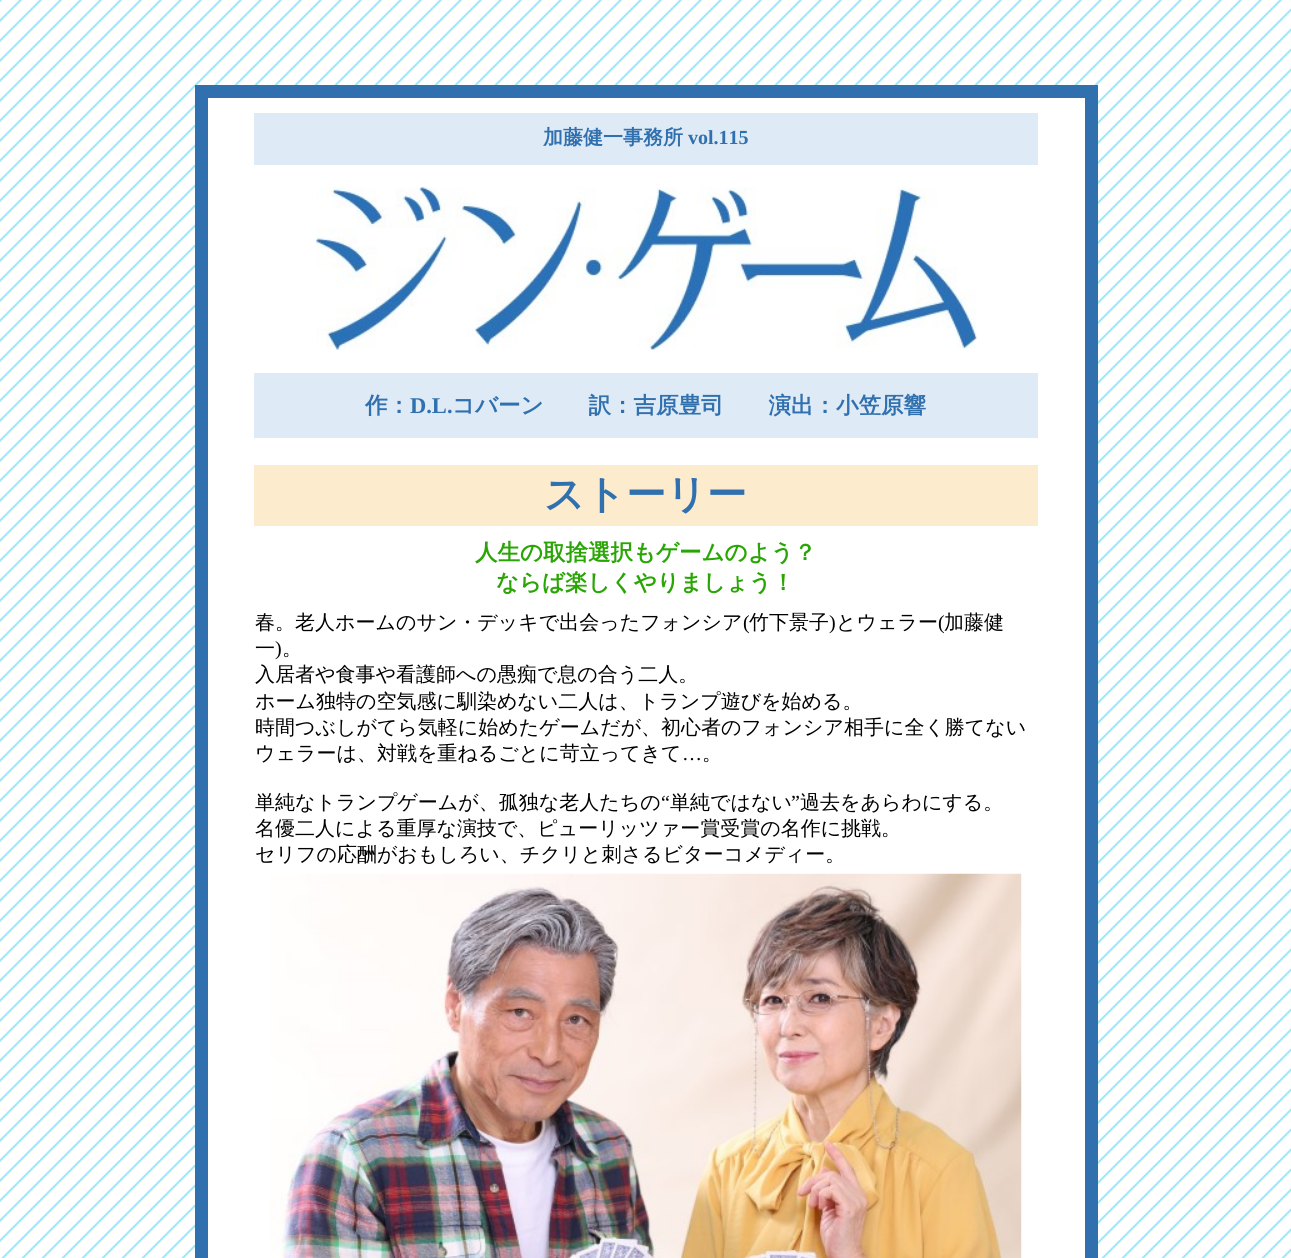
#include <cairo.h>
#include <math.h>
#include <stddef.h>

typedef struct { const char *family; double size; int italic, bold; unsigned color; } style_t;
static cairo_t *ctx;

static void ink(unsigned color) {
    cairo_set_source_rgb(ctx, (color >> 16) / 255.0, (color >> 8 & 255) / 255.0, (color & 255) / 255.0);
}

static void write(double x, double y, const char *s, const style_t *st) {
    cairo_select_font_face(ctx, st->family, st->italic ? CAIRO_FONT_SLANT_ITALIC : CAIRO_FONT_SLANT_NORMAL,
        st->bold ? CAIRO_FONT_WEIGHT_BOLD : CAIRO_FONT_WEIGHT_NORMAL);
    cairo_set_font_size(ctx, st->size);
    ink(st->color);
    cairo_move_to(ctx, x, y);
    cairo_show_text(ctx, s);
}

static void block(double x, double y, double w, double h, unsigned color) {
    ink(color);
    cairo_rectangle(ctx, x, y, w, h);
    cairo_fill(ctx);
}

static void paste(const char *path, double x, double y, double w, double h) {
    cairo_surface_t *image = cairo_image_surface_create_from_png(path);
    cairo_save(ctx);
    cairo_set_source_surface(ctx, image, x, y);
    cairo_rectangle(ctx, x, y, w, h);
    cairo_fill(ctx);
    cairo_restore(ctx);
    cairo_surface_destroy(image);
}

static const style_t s1 = {"WenQuanYi Zen Hei", 20, 0, 1, 0x3170af};
static const style_t s2 = {"Liberation Serif", 20, 0, 1, 0x3170af};
static const style_t s3 = {"WenQuanYi Zen Hei", 22.5, 0, 1, 0x3170af};
static const style_t s4 = {"Liberation Serif", 22.5, 0, 1, 0x3170af};
static const style_t s5 = {"WenQuanYi Zen Hei", 40, 0, 1, 0x3170af};
static const style_t s6 = {"WenQuanYi Zen Hei", 22.5, 0, 1, 0x29a505};
static const style_t s7 = {"WenQuanYi Zen Hei Medium", 20, 0, 0, 0x000000};
static const style_t s8 = {"Liberation Serif", 20, 0, 0, 0x000000};

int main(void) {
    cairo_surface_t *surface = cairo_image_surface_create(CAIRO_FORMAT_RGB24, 1291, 1258);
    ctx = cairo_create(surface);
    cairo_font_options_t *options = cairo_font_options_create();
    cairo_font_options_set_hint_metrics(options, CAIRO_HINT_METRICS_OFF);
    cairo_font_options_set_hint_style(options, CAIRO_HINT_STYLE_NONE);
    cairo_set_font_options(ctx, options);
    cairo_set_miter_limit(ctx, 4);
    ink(0xffffff);
    cairo_paint(ctx);
    paste("pic1.png", 0, 0, 1291, 1258);
    block(195, 85, 903, 1173, 0x3170af);
    block(208, 98, 877, 1160, 0xffffff);
    block(254, 113, 784, 52, 0xdeeaf5);
    write(543, 144, "加藤健一事務所", &s1);
    write(688, 144, "vol.115", &s2);
    paste("pic2.png", 316, 187, 661, 163);
    block(254, 373, 784, 65, 0xdeeaf5);
    write(365, 413, "作：", &s3);
    write(410, 413, "D.L.", &s4);
    write(452, 413, "コバーン　　訳：吉原豊司　　演出：小笠原響", &s3);
    block(254, 465, 784, 61, 0xfcebcd);
    write(544, 508, "ストーリー", &s5);
    write(475, 560, "人生の取捨選択もゲームのよう？", &s6);
    write(496, 590, "ならば楽しくやりましょう！", &s6);
    write(255, 629, "春。老人ホームのサン・デッキで出会ったフォンシア", &s7);
    write(743, 629, "(", &s8);
    write(749, 629, "竹下景子", &s7);
    write(829, 629, ")", &s8);
    write(836, 629, "とウェラー", &s7);
    write(938, 629, "(", &s8);
    write(944, 629, "加藤健", &s7);
    write(255, 655, "一", &s7);
    write(275, 655, ")", &s8);
    write(282, 655, "。", &s7);
    write(255, 681, "入居者や食事や看護師への愚痴で息の合う二人。", &s7);
    write(255, 708, "ホーム独特の空気感に馴染めない二人は、トランプ遊びを始める。", &s7);
    write(255, 734, "時間つぶしがてら気軽に始めたゲームだが、初心者のフォンシア相手に全く勝てない", &s7);
    write(255, 760, "ウェラーは、対戦を重ねるごとに苛立ってきて", &s7);
    write(682, 760, "…", &s8);
    write(702, 760, "。", &s7);
    write(255, 809, "単純なトランプゲームが、孤独な老人たちの", &s7);
    write(661, 809, "“", &s8);
    write(670, 809, "単純ではない", &s7);
    write(791, 809, "”", &s8);
    write(800, 809, "過去をあらわにする。", &s7);
    write(255, 835, "名優二人による重厚な演技で、ピューリッツァー賞受賞の名作に挑戦。", &s7);
    write(255, 861, "セリフの応酬がおもしろい、チクリと刺さるビターコメディー。", &s7);
    paste("pic3.png", 270, 873, 752, 385);
    cairo_surface_write_to_png(surface, "screenshot.png");
    cairo_font_options_destroy(options);
    cairo_destroy(ctx);
    cairo_surface_destroy(surface);
    return 0;
}
